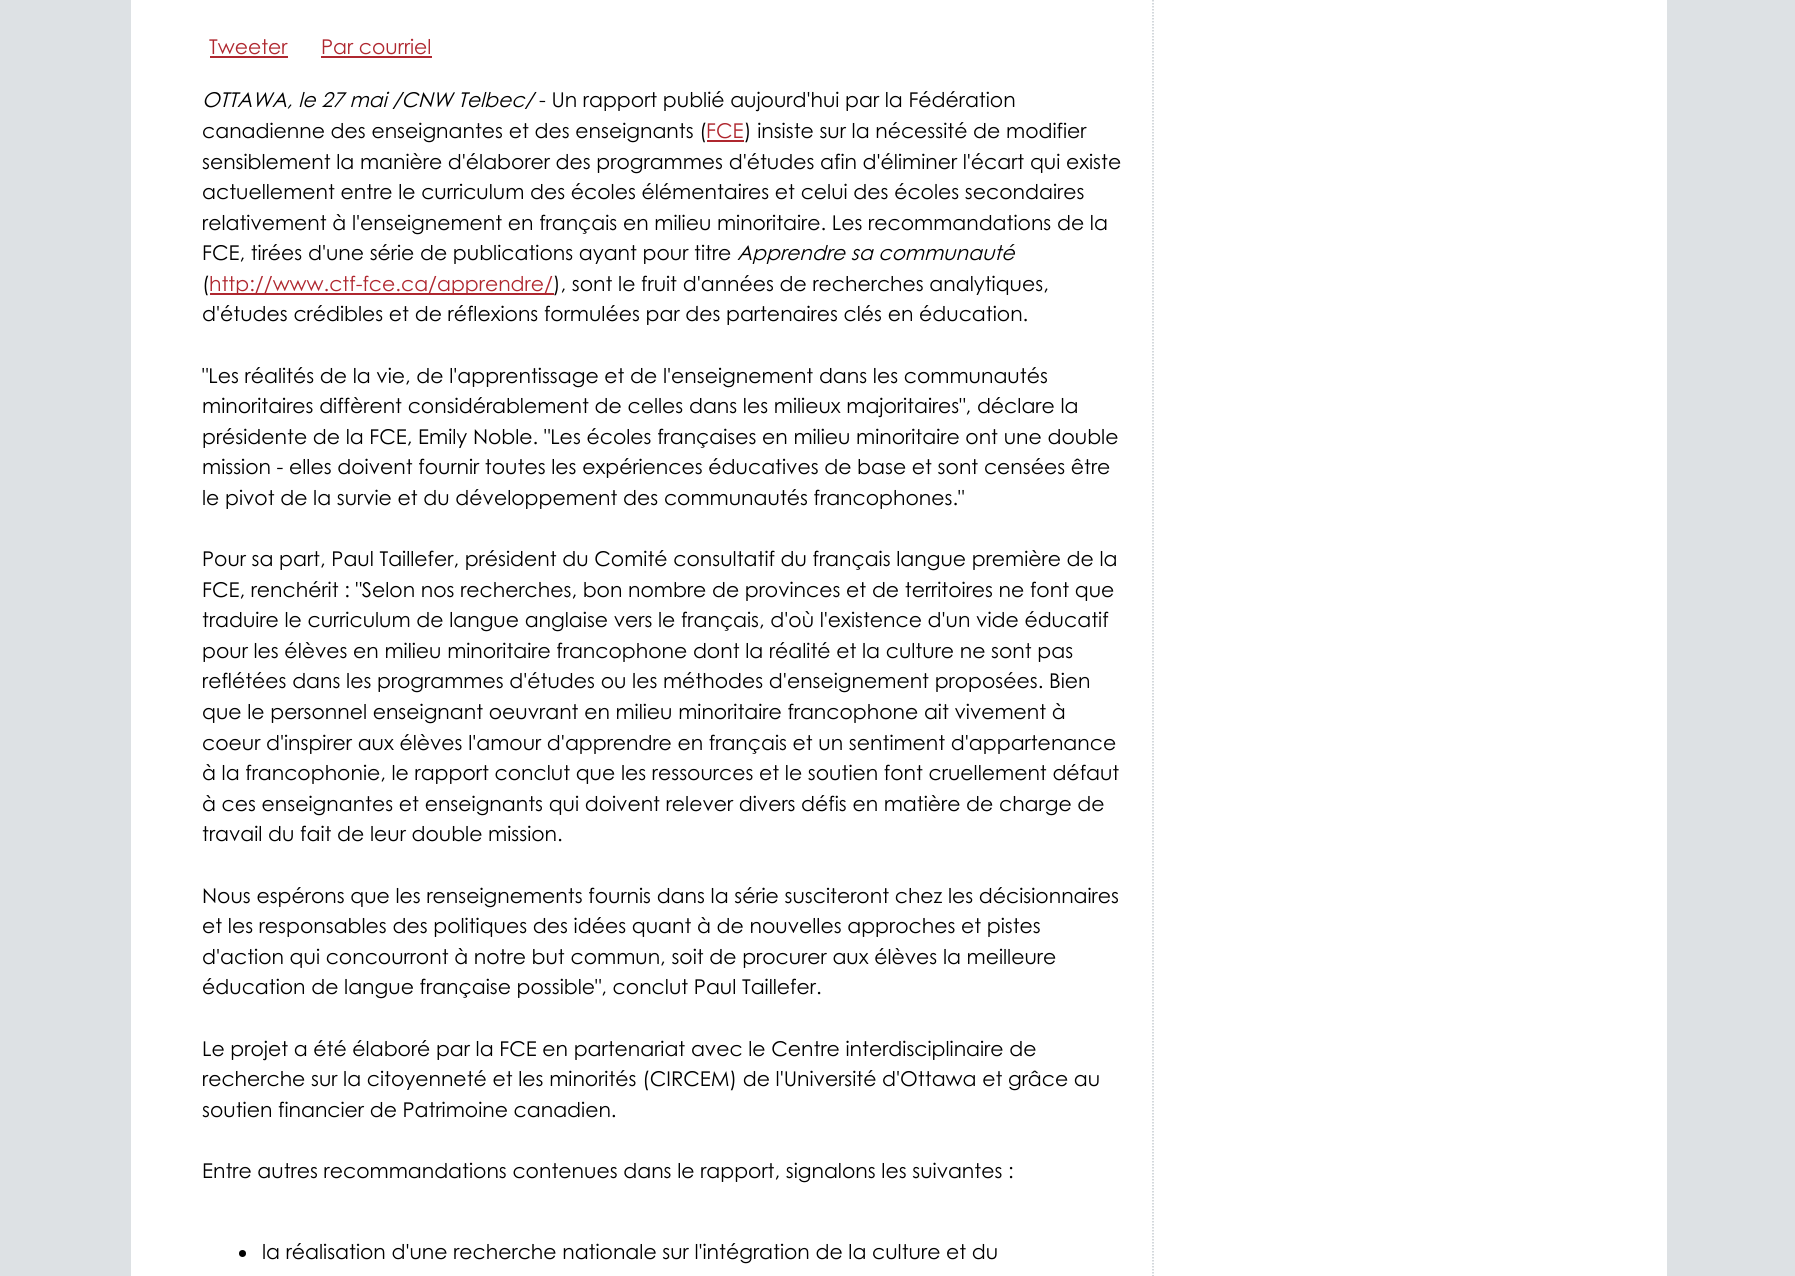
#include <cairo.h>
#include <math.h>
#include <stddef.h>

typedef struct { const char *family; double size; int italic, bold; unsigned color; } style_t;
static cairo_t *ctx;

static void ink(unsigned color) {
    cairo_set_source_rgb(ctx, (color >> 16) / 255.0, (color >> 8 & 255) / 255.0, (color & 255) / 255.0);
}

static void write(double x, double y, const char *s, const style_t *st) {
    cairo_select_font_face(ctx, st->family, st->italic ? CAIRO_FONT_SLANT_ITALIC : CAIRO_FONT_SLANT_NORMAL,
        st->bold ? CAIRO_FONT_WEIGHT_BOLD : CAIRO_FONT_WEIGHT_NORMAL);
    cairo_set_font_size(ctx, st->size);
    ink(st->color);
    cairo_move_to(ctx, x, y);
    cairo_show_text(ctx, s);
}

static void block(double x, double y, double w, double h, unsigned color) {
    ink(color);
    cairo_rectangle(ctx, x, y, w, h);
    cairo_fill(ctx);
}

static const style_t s1 = {"Century Gothic", 20.4, 0, 0, 0xaf272f};
static const style_t s2 = {"Century Gothic", 20.4, 1, 0, 0x000000};
static const style_t s3 = {"Century Gothic", 20.4, 0, 0, 0x000000};

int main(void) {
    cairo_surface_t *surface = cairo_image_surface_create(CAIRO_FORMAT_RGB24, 1795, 1276);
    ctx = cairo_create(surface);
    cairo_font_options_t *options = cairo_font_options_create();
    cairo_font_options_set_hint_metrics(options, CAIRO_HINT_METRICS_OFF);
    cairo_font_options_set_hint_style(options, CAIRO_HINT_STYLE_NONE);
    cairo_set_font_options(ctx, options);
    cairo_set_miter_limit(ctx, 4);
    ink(0xdde1e4);
    cairo_paint(ctx);
    block(131, 0, 1536, 1276, 0xffffff);
    cairo_new_path(ctx);
    cairo_move_to(ctx, 1153, -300);
    cairo_line_to(ctx, 1153, 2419.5);
    ink(0xc4cbd0);
    cairo_set_line_width(ctx, 1.5);
    cairo_set_dash(ctx, (double[]){1.5, 1.5}, 2, 0);
    cairo_stroke(ctx);
    write(209, 54, "Tweeter", &s1);
    block(210, 56, 78, 2, 0xaf272f);
    write(321, 54, "Par courriel", &s1);
    block(321, 56, 111, 2, 0xaf272f);
    write(202, 107, "OTTAWA, le 27 mai /CNW Telbec/", &s2);
    write(539, 107, "- Un rapport publié aujourd'hui par la Fédération", &s3);
    write(202, 138, "canadienne des enseignantes et des enseignants (", &s3);
    write(706, 138, "FCE", &s1);
    block(707, 140, 37, 2, 0xaf272f);
    write(744, 138, ") insiste sur la nécessité de modifier", &s3);
    write(202, 169, "sensiblement la manière d'élaborer des programmes d'études afin d'éliminer l'écart qui existe", &s3);
    write(202, 199, "actuellement entre le curriculum des écoles élémentaires et celui des écoles secondaires", &s3);
    write(202, 230, "relativement à l'enseignement en français en milieu minoritaire. Les recommandations de la", &s3);
    write(202, 260, "FCE, tirées d'une série de publications ayant pour titre", &s3);
    write(737, 260, "Apprendre sa communauté", &s2);
    write(202, 291, "(", &s3);
    block(210, 293, 344, 2, 0xaf272f);
    write(209, 291, "http://www.ctf-fce.ca/apprendre/", &s1);
    write(553, 291, "), sont le fruit d'années de recherches analytiques,", &s3);
    write(202, 321, "d'études crédibles et de réflexions formulées par des partenaires clés en éducation.", &s3);
    write(202, 383, "\"Les réalités de la vie, de l'apprentissage et de l'enseignement dans les communautés", &s3);
    write(202, 413, "minoritaires diffèrent considérablement de celles dans les milieux majoritaires\", déclare la", &s3);
    write(202, 444, "présidente de la FCE, Emily Noble. \"Les écoles françaises en milieu minoritaire ont une double", &s3);
    write(202, 474, "mission - elles doivent fournir toutes les expériences éducatives de base et sont censées être", &s3);
    write(202, 505, "le pivot de la survie et du développement des communautés francophones.\"", &s3);
    write(202, 566, "Pour sa part, Paul Taillefer, président du Comité consultatif du français langue première de la", &s3);
    write(202, 597, "FCE, renchérit : \"Selon nos recherches, bon nombre de provinces et de territoires ne font que", &s3);
    write(202, 627, "traduire le curriculum de langue anglaise vers le français, d'où l'existence d'un vide éducatif", &s3);
    write(202, 658, "pour les élèves en milieu minoritaire francophone dont la réalité et la culture ne sont pas", &s3);
    write(202, 688, "reflétées dans les programmes d'études ou les méthodes d'enseignement proposées. Bien", &s3);
    write(202, 719, "que le personnel enseignant oeuvrant en milieu minoritaire francophone ait vivement à", &s3);
    write(202, 750, "coeur d'inspirer aux élèves l'amour d'apprendre en français et un sentiment d'appartenance", &s3);
    write(202, 780, "à la francophonie, le rapport conclut que les ressources et le soutien font cruellement défaut", &s3);
    write(202, 811, "à ces enseignantes et enseignants qui doivent relever divers défis en matière de charge de", &s3);
    write(202, 841, "travail du fait de leur double mission.", &s3);
    write(202, 903, "Nous espérons que les renseignements fournis dans la série susciteront chez les décisionnaires", &s3);
    write(202, 933, "et les responsables des politiques des idées quant à de nouvelles approches et pistes", &s3);
    write(202, 964, "d'action qui concourront à notre but commun, soit de procurer aux élèves la meilleure", &s3);
    write(202, 994, "éducation de langue française possible\", conclut Paul Taillefer.", &s3);
    write(202, 1056, "Le projet a été élaboré par la FCE en partenariat avec le Centre interdisciplinaire de", &s3);
    write(202, 1086, "recherche sur la citoyenneté et les minorités (CIRCEM) de l'Université d'Ottawa et grâce au", &s3);
    write(202, 1117, "soutien financier de Patrimoine canadien.", &s3);
    write(202, 1178, "Entre autres recommandations contenues dans le rapport, signalons les suivantes :", &s3);
    cairo_new_path(ctx);
    cairo_arc(ctx, 242.5, 1253.5, 3.5, 0, 2 * M_PI);
    cairo_fill(ctx);
    write(262, 1259, "la réalisation d'une recherche nationale sur l'intégration de la culture et du", &s3);
    cairo_surface_write_to_png(surface, "screenshot.png");
    cairo_font_options_destroy(options);
    cairo_destroy(ctx);
    cairo_surface_destroy(surface);
    return 0;
}
